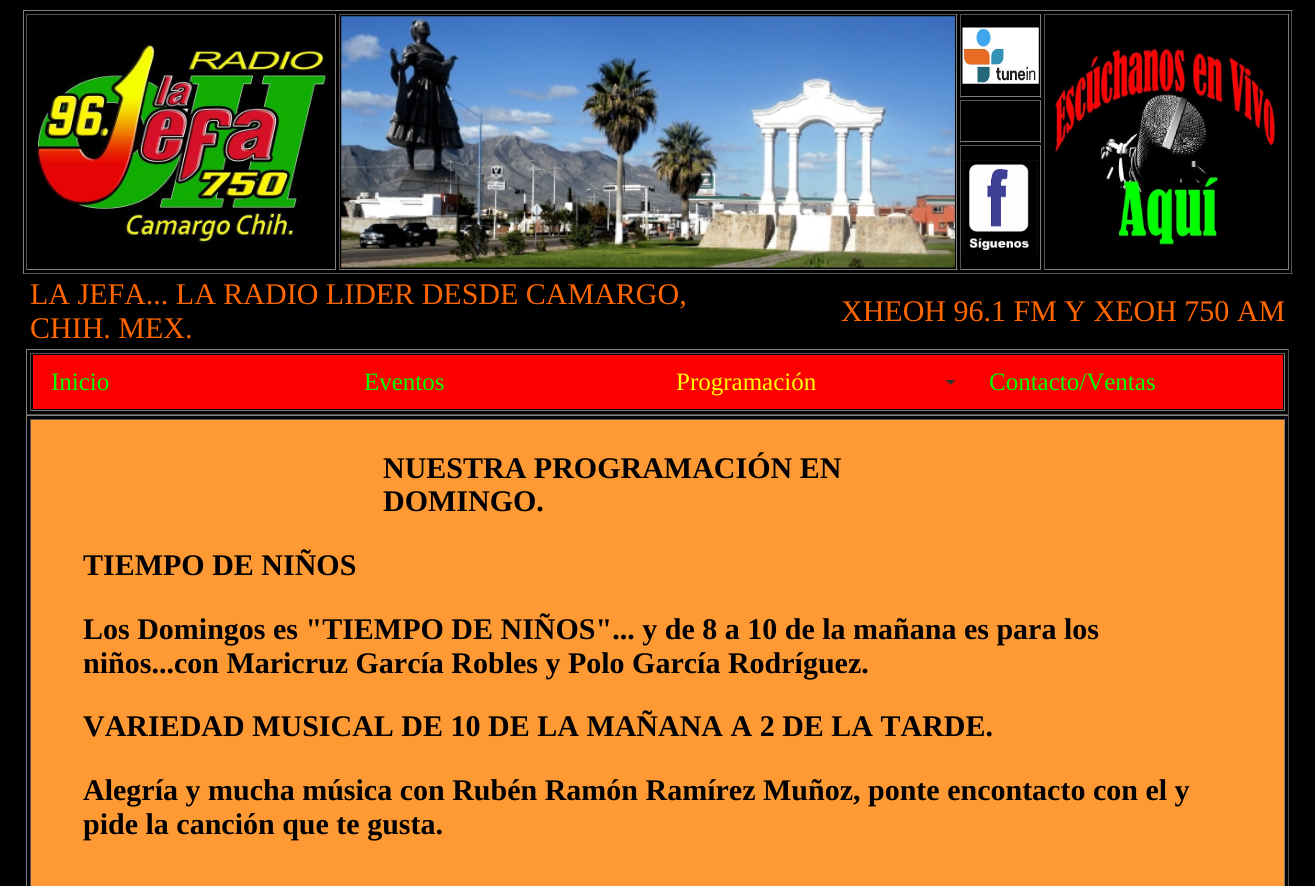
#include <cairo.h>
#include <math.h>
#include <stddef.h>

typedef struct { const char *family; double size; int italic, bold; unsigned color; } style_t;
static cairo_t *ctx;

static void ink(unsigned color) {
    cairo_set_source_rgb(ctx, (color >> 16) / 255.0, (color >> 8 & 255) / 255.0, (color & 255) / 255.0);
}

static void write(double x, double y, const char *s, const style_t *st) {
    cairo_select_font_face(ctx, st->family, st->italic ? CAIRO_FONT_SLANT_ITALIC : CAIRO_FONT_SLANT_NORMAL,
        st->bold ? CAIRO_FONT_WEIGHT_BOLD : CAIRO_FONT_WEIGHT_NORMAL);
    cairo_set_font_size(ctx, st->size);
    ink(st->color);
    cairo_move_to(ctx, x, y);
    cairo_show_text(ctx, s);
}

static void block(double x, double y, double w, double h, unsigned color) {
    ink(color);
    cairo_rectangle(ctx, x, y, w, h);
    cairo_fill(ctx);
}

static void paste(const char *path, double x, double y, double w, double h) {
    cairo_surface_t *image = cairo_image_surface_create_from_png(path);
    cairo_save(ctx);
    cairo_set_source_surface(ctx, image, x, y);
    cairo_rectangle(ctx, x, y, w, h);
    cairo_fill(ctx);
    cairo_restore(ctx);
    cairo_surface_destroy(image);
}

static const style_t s1 = {"Liberation Serif", 30, 0, 0, 0xff6600};
static const style_t s2 = {"Liberation Serif", 25, 0, 0, 0x00ff00};
static const style_t s3 = {"Liberation Serif", 25, 0, 0, 0xffff00};
static const style_t s4 = {"Liberation Serif", 30, 0, 1, 0x000000};

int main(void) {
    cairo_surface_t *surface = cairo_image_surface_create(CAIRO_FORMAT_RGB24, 1315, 886);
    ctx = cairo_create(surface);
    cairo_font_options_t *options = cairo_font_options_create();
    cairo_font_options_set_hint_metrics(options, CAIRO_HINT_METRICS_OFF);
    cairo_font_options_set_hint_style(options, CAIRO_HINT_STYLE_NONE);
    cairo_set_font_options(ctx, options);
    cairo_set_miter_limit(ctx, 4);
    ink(0x000000);
    cairo_paint(ctx);
    block(23, 10, 1270, 1, 0x808080);
    block(1291, 10, 1, 264, 0x555555);
    block(23, 273, 1270, 1, 0x555555);
    block(23, 10, 1, 264, 0x808080);
    block(26, 14, 310, 1, 0x555555);
    block(335, 14, 1, 256, 0x808080);
    block(26, 269, 310, 1, 0x808080);
    block(26, 14, 1, 256, 0x555555);
    paste("pic1.png", 36, 43, 295, 205);
    block(339, 14, 619, 1, 0x555555);
    block(956, 14, 1, 256, 0x808080);
    block(339, 269, 619, 1, 0x808080);
    block(339, 14, 1, 256, 0x555555);
    paste("pic2.png", 341, 16, 614, 252);
    block(960, 14, 81, 1, 0x555555);
    block(1040, 14, 1, 84, 0x808080);
    block(960, 96, 81, 1, 0x808080);
    block(960, 14, 1, 84, 0x555555);
    paste("pic3.png", 962, 27, 77, 57);
    block(1044, 14, 245, 1, 0x555555);
    block(1288, 14, 1, 256, 0x808080);
    block(1044, 269, 245, 1, 0x808080);
    block(1044, 14, 1, 256, 0x555555);
    paste("pic4.png", 1054, 48, 222, 197);
    block(960, 100, 81, 1, 0x555555);
    block(1040, 100, 1, 43, 0x808080);
    block(960, 141, 81, 1, 0x808080);
    block(960, 100, 1, 43, 0x555555);
    block(960, 145, 81, 1, 0x555555);
    block(1040, 145, 1, 125, 0x808080);
    block(960, 269, 81, 1, 0x808080);
    block(960, 145, 1, 125, 0x555555);
    paste("pic5.png", 962, 160, 76, 95);
    write(30, 304, "LA JEFA... LA RADIO LIDER DESDE CAMARGO,", &s1);
    write(30, 338, "CHIH. MEX.", &s1);
    write(841, 321, "XHEOH 96.1 FM Y XEOH 750 AM", &s1);
    block(26, 349, 1263, 1, 0x808080);
    block(1288, 349, 1, 66, 0x555555);
    block(26, 414, 1263, 1, 0x555555);
    block(26, 349, 1, 66, 0x808080);
    block(30, 353, 1255, 1, 0x555555);
    block(1284, 353, 1, 58, 0x808080);
    block(30, 410, 1255, 1, 0x808080);
    block(30, 353, 1, 58, 0x555555);
    block(33, 355, 1250, 54, 0xff0000);
    write(51, 390, "Inicio", &s2);
    write(364, 390, "Eventos", &s2);
    paste("pic6.png", 946, 380, 9, 5);
    write(676, 390, "Programación", &s3);
    write(989, 390, "Contacto/Ventas", &s2);
    block(26, 415, 1263, 1, 0x808080);
    block(1288, 415, 1, 471, 0x555555);
    block(26, 415, 1, 471, 0x808080);
    block(31, 420, 1253, 466, 0xff9933);
    block(30, 419, 1255, 1, 0x555555);
    block(1284, 419, 1, 467, 0x808080);
    block(30, 419, 1, 467, 0x555555);
    write(383, 478, "NUESTRA PROGRAMACIÓN EN", &s4);
    write(383, 511, "DOMINGO.", &s4);
    write(83, 575, "TIEMPO DE NIÑOS", &s4);
    write(83, 639, "Los Domingos es \"TIEMPO DE NIÑOS\"... y de 8 a 10 de la mañana es para los", &s4);
    write(83, 673, "niños...con Maricruz García Robles y Polo García Rodríguez.", &s4);
    write(83, 736, "VARIEDAD MUSICAL DE 10 DE LA MAÑANA A 2 DE LA TARDE.", &s4);
    write(83, 800, "Alegría y mucha música con Rubén Ramón Ramírez Muñoz, ponte encontacto con el y", &s4);
    write(83, 834, "pide la canción que te gusta.", &s4);
    cairo_surface_write_to_png(surface, "screenshot.png");
    cairo_font_options_destroy(options);
    cairo_destroy(ctx);
    cairo_surface_destroy(surface);
    return 0;
}
